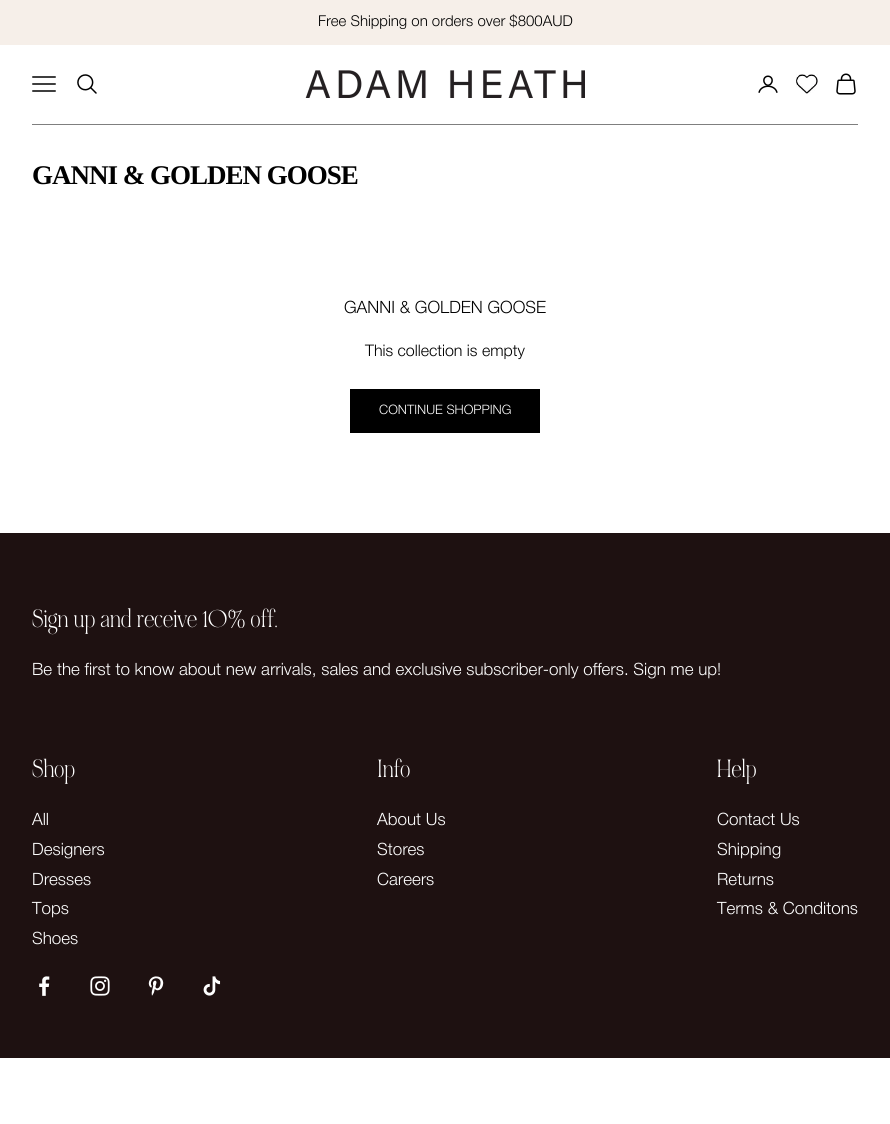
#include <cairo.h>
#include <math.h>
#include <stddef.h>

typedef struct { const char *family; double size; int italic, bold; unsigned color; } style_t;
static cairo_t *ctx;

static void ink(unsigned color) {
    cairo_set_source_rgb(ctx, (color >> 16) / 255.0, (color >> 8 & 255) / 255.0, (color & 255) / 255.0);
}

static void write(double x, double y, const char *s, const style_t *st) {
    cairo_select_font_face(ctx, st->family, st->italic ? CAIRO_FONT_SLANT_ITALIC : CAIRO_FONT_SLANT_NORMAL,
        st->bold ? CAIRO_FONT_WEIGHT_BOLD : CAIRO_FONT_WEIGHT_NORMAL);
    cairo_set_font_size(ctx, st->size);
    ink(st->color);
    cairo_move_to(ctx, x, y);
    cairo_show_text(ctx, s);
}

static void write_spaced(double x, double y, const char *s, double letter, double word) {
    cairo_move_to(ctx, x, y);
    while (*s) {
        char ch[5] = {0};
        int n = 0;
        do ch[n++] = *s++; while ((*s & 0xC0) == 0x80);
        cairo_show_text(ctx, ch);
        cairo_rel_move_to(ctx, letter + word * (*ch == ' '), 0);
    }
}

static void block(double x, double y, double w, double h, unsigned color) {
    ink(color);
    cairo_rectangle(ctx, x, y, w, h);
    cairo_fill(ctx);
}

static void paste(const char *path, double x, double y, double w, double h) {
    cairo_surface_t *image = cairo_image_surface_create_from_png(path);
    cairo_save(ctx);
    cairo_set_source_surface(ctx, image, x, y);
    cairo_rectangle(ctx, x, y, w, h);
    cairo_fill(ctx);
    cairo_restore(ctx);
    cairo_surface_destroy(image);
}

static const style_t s1 = {"Helvetica Neue Light", 15, 0, 0, 0x000000};
static const style_t s2 = {"Helvetica Neue Light", 17, 0, 0, 0x000000};
static const style_t s3 = {"Helvetica Neue Light", 16, 0, 0, 0x000000};
static const style_t s4 = {"Helvetica Neue Light", 13, 0, 0, 0xffffff};
static const style_t s5 = {"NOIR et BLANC", 20, 0, 0, 0xffffff};
static const style_t s6 = {"Helvetica Neue Light", 17, 0, 0, 0xffffff};

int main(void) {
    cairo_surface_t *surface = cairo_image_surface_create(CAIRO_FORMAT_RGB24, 890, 1124);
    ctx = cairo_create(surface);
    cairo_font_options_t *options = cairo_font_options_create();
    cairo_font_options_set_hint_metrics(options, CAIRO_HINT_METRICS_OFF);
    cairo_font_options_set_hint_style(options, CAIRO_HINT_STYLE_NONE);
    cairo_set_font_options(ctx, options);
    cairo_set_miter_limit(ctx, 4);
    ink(0xffffff);
    cairo_paint(ctx);
    block(0, 0, 890, 45, 0xf6efe9);
    write(318, 26, "Free Shipping on orders over $800AUD", &s1);
    paste("pic1.png", 305, 70, 280, 28);
    cairo_new_path(ctx);
    cairo_move_to(ctx, 33, 91);
    cairo_line_to(ctx, 55, 91);
    cairo_move_to(ctx, 33, 84);
    cairo_line_to(ctx, 55, 84);
    cairo_move_to(ctx, 33, 77);
    cairo_line_to(ctx, 55, 77);
    cairo_set_line_width(ctx, 1.5);
    cairo_set_line_cap(ctx, CAIRO_LINE_CAP_SQUARE);
    cairo_stroke(ctx);
    paste("pic2.png", 77, 74, 20, 20);
    paste("pic3.png", 758, 75, 20, 18);
    paste("pic4.png", 796, 74, 22, 20);
    paste("pic5.png", 836, 73, 20, 22);
    block(32, 124, 826, 1, 0x7f7f7f);
    cairo_select_font_face(ctx, "Liberation Serif", CAIRO_FONT_SLANT_NORMAL, CAIRO_FONT_WEIGHT_BOLD);
    cairo_set_font_size(ctx, 27);
    ink(0x000000);
    write_spaced(32, 184, "GANNI & GOLDEN GOOSE", -1, 0);
    write(344, 313, "GANNI & GOLDEN GOOSE", &s2);
    write(365, 356, "This collection is empty", &s3);
    cairo_rectangle(ctx, 350.5, 389.5, 189, 43);
    cairo_fill_preserve(ctx);
    cairo_set_line_width(ctx, 1);
    cairo_set_line_cap(ctx, CAIRO_LINE_CAP_BUTT);
    cairo_stroke(ctx);
    write(379, 414, "CONTINUE SHOPPING", &s4);
    block(0, 533, 890, 525, 0x1e1111);
    write(32, 627, "Sign up and receive 10% off.", &s5);
    write(32, 675, "Be the first to know about new arrivals, sales and exclusive subscriber-only offers. Sign me up!", &s6);
    write(32, 777, "Shop", &s5);
    write(32, 825, "All", &s6);
    write(32, 855, "Designers", &s6);
    write(32, 885, "Dresses", &s6);
    write(32, 914, "Tops", &s6);
    write(32, 944, "Shoes", &s6);
    write(377, 777, "Info", &s5);
    write(377, 825, "About Us", &s6);
    write(377, 855, "Stores", &s6);
    write(377, 885, "Careers", &s6);
    write(717, 777, "Help", &s5);
    write(717, 825, "Contact Us", &s6);
    write(717, 855, "Shipping", &s6);
    write(717, 885, "Returns", &s6);
    write(717, 914, "Terms & Conditons", &s6);
    paste("pic6.png", 39, 976, 11, 20);
    paste("pic7.png", 90, 976, 20, 20);
    paste("pic8.png", 148, 976, 16, 20);
    paste("pic9.png", 203, 976, 18, 20);
    cairo_surface_write_to_png(surface, "screenshot.png");
    cairo_font_options_destroy(options);
    cairo_destroy(ctx);
    cairo_surface_destroy(surface);
    return 0;
}
